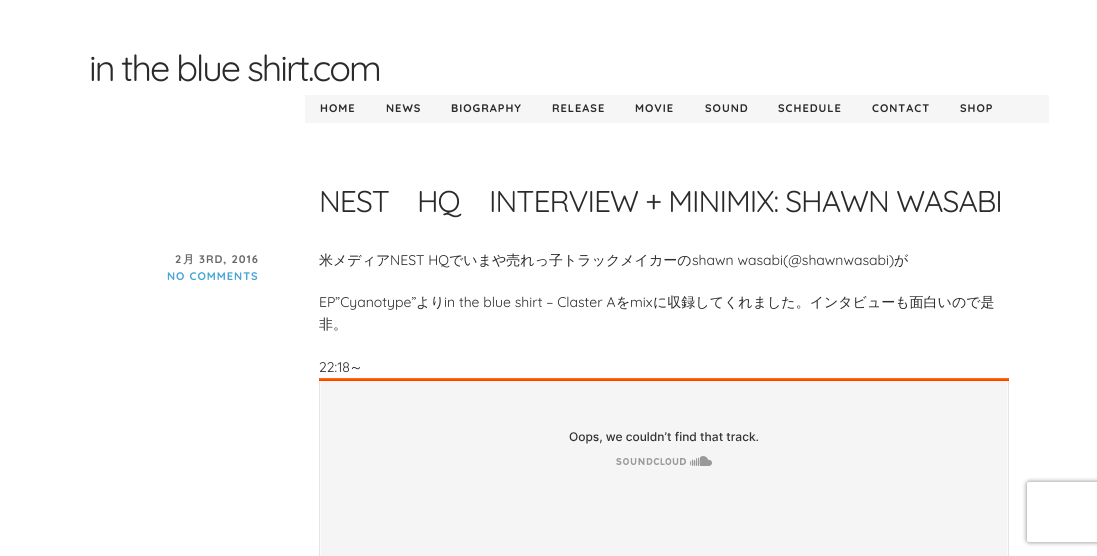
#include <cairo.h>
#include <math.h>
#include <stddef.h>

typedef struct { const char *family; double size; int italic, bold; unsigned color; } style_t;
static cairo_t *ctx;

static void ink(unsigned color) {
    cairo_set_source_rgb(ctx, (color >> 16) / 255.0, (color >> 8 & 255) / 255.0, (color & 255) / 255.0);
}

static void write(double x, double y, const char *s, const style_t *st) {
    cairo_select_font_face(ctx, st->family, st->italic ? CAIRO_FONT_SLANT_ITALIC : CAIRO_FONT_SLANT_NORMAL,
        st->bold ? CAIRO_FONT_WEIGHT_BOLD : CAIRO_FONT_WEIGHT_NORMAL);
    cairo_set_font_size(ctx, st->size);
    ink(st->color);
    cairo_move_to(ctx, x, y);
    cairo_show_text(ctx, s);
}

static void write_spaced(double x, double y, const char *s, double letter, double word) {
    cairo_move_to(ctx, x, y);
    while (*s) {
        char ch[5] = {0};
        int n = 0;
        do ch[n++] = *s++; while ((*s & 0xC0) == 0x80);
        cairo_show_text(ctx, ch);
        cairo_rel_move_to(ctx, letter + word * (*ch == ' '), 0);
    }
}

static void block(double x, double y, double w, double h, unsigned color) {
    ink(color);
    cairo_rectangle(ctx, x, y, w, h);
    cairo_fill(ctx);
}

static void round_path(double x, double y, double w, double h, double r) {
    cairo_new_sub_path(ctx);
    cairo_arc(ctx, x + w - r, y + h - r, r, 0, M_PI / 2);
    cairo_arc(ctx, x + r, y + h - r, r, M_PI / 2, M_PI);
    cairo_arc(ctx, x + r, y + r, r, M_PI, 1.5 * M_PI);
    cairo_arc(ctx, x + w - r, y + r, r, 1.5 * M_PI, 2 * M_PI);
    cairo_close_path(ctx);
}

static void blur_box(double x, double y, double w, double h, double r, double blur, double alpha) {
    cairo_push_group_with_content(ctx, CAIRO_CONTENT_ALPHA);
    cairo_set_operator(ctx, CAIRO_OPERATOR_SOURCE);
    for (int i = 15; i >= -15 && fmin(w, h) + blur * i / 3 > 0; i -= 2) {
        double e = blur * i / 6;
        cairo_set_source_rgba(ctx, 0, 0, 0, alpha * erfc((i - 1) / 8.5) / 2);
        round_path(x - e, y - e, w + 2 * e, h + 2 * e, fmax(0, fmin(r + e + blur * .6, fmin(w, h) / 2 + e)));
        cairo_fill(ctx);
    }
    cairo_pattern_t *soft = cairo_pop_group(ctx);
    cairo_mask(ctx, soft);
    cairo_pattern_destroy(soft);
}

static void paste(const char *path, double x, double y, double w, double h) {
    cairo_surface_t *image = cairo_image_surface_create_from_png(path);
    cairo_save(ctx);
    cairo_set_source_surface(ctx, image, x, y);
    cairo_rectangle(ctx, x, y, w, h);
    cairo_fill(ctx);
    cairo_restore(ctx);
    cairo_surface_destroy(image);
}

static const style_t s1 = {"WenQuanYi Zen Hei Medium", 14, 0, 0, 0x2a2a2b};
static const style_t s2 = {"Quicksand", 14, 0, 0, 0x2a2a2b};

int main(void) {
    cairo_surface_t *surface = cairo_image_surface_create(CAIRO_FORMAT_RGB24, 1097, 556);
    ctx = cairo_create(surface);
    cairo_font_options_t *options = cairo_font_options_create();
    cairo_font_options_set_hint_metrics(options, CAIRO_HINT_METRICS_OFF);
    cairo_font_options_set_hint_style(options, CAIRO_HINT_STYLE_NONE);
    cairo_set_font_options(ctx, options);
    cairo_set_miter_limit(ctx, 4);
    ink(0xffffff);
    cairo_paint(ctx);
    cairo_select_font_face(ctx, "Quicksand", CAIRO_FONT_SLANT_NORMAL, CAIRO_FONT_WEIGHT_NORMAL);
    cairo_set_font_size(ctx, 36);
    ink(0x2a2a2b);
    write_spaced(89, 81, "in the blue shirt.com", -2, 0);
    block(305, 95, 744, 28, 0xf6f6f6);
    cairo_select_font_face(ctx, "Quicksand", CAIRO_FONT_SLANT_NORMAL, CAIRO_FONT_WEIGHT_BOLD);
    cairo_set_font_size(ctx, 11);
    ink(0x2a2a2b);
    write_spaced(320, 112, "HOME", 1, 0);
    write_spaced(386, 112, "NEWS", 1, 0);
    write_spaced(451, 112, "BIOGRAPHY", 1, 0);
    write_spaced(552, 112, "RELEASE", 1, 0);
    write_spaced(635, 112, "MOVIE", 1, 0);
    write_spaced(705, 112, "SOUND", 1, 0);
    write_spaced(778, 112, "SCHEDULE", 1, 0);
    write_spaced(872, 112, "CONTACT", 1, 0);
    write_spaced(960, 112, "SHOP", 1, 0);
    cairo_select_font_face(ctx, "Quicksand", CAIRO_FONT_SLANT_NORMAL, CAIRO_FONT_WEIGHT_NORMAL);
    cairo_set_font_size(ctx, 30);
    write_spaced(319, 212, "NEST", -1, 0);
    write_spaced(417, 212, "HQ", -1, 0);
    write_spaced(489, 212, "INTERVIEW + MINIMIX: SHAWN WASABI", -1, 0);
    cairo_select_font_face(ctx, "Quicksand", CAIRO_FONT_SLANT_NORMAL, CAIRO_FONT_WEIGHT_BOLD);
    cairo_set_font_size(ctx, 11);
    ink(0x676768);
    write_spaced(175, 263, "2", 1, 0);
    cairo_select_font_face(ctx, "WenQuanYi Zen Hei", CAIRO_FONT_SLANT_NORMAL, CAIRO_FONT_WEIGHT_BOLD);
    write_spaced(183, 263, "月", 1, 0);
    cairo_select_font_face(ctx, "Quicksand", CAIRO_FONT_SLANT_NORMAL, CAIRO_FONT_WEIGHT_BOLD);
    write_spaced(199, 263, "3RD, 2016", 1, 0);
    ink(0x44a5d5);
    write_spaced(167, 280, "NO COMMENTS", 1, 0);
    write(319, 265, "米メディア", &s1);
    write(390, 265, "NEST HQ", &s2);
    write(449, 265, "でいまや売れっ子トラックメイカーの", &s1);
    write(692, 265, "shawn wasabi(@shawnwasabi)", &s2);
    write(894, 265, "が", &s1);
    write(319, 307, "EP”Cyanotype”", &s2);
    write(416, 307, "より", &s1);
    write(444, 307, "in the blue shirt – Claster A", &s2);
    write(616, 307, "を", &s1);
    write(630, 307, "mix", &s2);
    write(653, 307, "に収録してくれました。インタビューも面白いので是", &s1);
    write(319, 329, "非。", &s1);
    write(319, 372, "22:18", &s2);
    write(349, 372, "～", &s1);
    paste("pic1.png", 319, 378, 690, 178);
    cairo_save(ctx);
    cairo_set_fill_rule(ctx, CAIRO_FILL_RULE_EVEN_ODD);
    cairo_new_path(ctx);
    cairo_move_to(ctx, 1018, 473);
    cairo_line_to(ctx, 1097, 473);
    cairo_line_to(ctx, 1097, 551);
    cairo_line_to(ctx, 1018, 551);
    cairo_close_path(ctx);
    cairo_move_to(ctx, 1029, 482);
    cairo_line_to(ctx, 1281, 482);
    cairo_curve_to(ctx, 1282, 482, 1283, 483, 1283, 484);
    cairo_line_to(ctx, 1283, 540);
    cairo_curve_to(ctx, 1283, 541, 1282, 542, 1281, 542);
    cairo_line_to(ctx, 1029, 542);
    cairo_curve_to(ctx, 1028, 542, 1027, 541, 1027, 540);
    cairo_line_to(ctx, 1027, 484);
    cairo_curve_to(ctx, 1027, 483, 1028, 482, 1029, 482);
    cairo_close_path(ctx);
    cairo_clip(ctx);
    ink(0x808080);
    blur_box(1027, 482, 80, 60, 2, 2.5, 1);
    cairo_restore(ctx);
    cairo_surface_write_to_png(surface, "screenshot.png");
    cairo_font_options_destroy(options);
    cairo_destroy(ctx);
    cairo_surface_destroy(surface);
    return 0;
}
